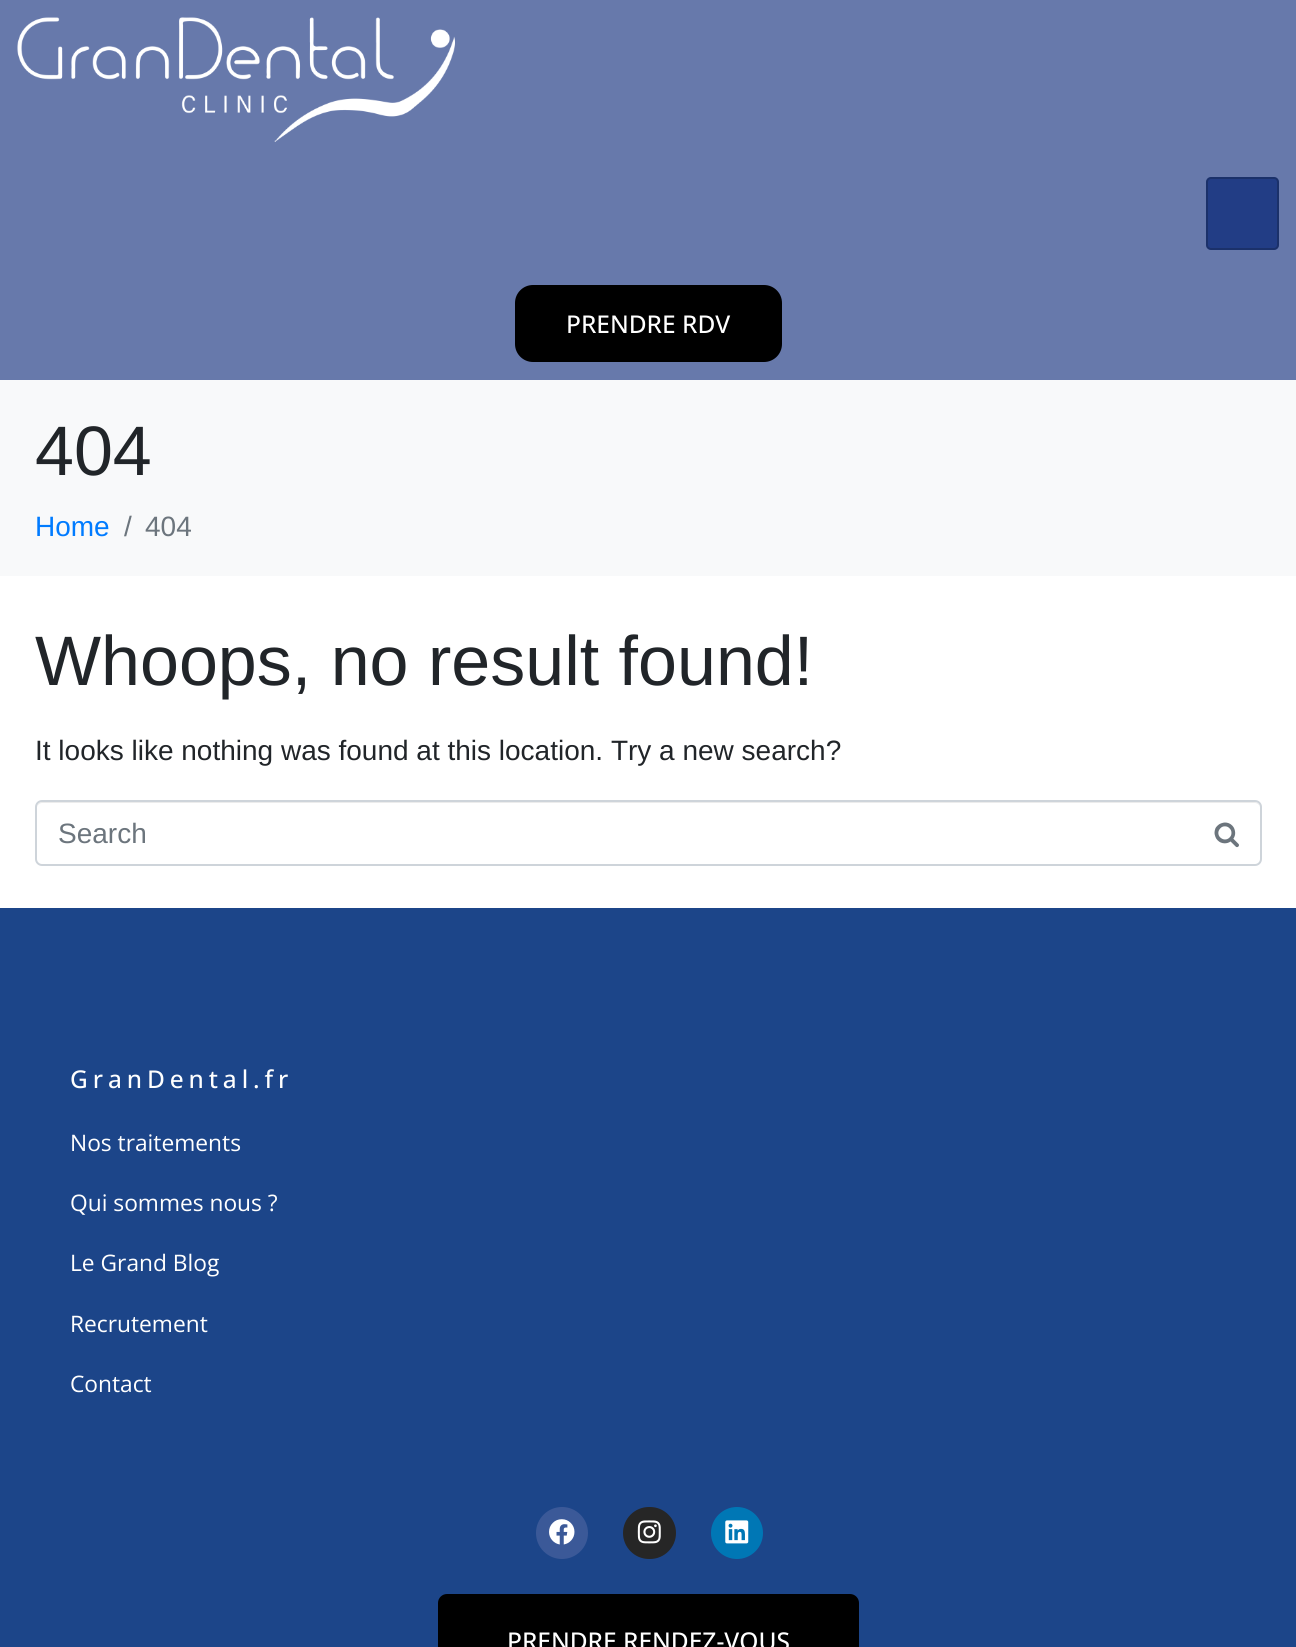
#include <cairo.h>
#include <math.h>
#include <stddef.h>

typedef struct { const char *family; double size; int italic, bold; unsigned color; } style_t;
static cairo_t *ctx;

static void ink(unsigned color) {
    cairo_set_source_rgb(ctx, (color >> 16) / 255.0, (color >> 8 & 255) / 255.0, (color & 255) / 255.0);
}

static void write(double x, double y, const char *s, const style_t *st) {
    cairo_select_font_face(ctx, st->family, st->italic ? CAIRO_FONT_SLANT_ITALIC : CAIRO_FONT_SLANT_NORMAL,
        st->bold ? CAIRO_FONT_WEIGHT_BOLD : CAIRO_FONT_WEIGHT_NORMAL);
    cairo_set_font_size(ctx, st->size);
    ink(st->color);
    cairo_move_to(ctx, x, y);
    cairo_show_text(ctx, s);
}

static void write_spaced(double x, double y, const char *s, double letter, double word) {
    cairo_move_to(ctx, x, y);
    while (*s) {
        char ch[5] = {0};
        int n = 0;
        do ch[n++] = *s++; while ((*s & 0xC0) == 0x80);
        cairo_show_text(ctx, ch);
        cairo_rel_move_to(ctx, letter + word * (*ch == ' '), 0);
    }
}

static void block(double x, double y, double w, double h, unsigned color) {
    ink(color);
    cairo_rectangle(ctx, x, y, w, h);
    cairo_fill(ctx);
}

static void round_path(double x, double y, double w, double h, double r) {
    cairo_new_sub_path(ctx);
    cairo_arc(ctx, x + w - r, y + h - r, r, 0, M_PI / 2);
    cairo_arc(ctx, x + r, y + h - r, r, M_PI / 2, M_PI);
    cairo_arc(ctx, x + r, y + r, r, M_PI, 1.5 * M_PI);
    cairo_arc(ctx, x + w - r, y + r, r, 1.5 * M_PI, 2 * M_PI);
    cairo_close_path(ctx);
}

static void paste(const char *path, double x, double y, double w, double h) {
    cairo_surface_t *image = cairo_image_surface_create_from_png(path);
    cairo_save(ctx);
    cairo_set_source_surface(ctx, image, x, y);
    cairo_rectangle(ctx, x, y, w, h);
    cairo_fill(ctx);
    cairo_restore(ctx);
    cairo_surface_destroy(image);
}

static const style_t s1 = {"Open Sans Medium", 24.5, 0, 0, 0xffffff};
static const style_t s2 = {"Liberation Sans", 70, 0, 0, 0x212529};
static const style_t s3 = {"Liberation Sans", 28, 0, 0, 0x007bff};
static const style_t s4 = {"Liberation Sans", 28, 0, 0, 0x6c757d};
static const style_t s5 = {"Liberation Sans", 28, 0, 0, 0x212529};
static const style_t s6 = {"Open Sans", 22.75, 0, 0, 0xffffff};

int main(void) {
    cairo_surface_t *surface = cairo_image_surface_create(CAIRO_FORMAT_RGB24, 1296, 1647);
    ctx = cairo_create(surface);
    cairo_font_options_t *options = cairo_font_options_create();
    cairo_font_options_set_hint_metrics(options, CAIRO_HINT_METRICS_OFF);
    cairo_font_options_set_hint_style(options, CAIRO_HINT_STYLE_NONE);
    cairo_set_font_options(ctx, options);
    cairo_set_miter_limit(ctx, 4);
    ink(0xffffff);
    cairo_paint(ctx);
    block(0, 0, 1296, 380, 0x6779ab);
    paste("pic1.png", 17, 17, 438, 125);
    ink(0x223d85);
    round_path(1206, 177, 73, 73, 5);
    cairo_fill(ctx);
    round_path(1207, 178, 71, 71, 4);
    cairo_set_source_rgba(ctx, 0, 0, 0, 0.2);
    cairo_stroke(ctx);
    ink(0x000000);
    round_path(515, 285, 267, 77, 18);
    cairo_fill(ctx);
    write(566, 333, "PRENDRE RDV", &s1);
    block(0, 380, 1296, 196, 0xf8f9fa);
    write(35, 475, "404", &s2);
    write(35, 536, "Home", &s3);
    write(124, 536, "/", &s4);
    write(145, 536, "404", &s4);
    write(35, 685, "Whoops, no result found!", &s2);
    write(35, 760, "It looks like nothing was found at this location. Try a new search?", &s5);
    ink(0xececec);
    cairo_new_path(ctx);
    cairo_move_to(ctx, 42, 803);
    cairo_line_to(ctx, 1255, 803);
    cairo_curve_to(ctx, 1258, 803, 1260, 806, 1260, 808);
    cairo_curve_to(ctx, 1260, 805, 1258, 802, 1255, 802);
    cairo_line_to(ctx, 42, 802);
    cairo_curve_to(ctx, 39, 802, 37, 805, 37, 808);
    cairo_curve_to(ctx, 37, 806, 39, 803, 42, 803);
    cairo_close_path(ctx);
    cairo_fill(ctx);
    round_path(36, 801, 1225, 64, 6);
    ink(0xced4da);
    cairo_stroke(ctx);
    write(58, 843, "Search", &s4);
    paste("pic2.png", 1214, 822, 25, 26);
    block(0, 908, 1296, 739, 0x1c4589);
    cairo_select_font_face(ctx, "Open Sans Medium", CAIRO_FONT_SLANT_NORMAL, CAIRO_FONT_WEIGHT_NORMAL);
    cairo_set_font_size(ctx, 24.5);
    ink(0xffffff);
    write_spaced(70, 1088, "GranDental.fr", 4.9, 0);
    write(70, 1151, "Nos traitements", &s6);
    write(70, 1211, "Qui sommes nous ?", &s6);
    write(70, 1271, "Le Grand Blog", &s6);
    write(70, 1332, "Recrutement", &s6);
    write(70, 1392, "Contact", &s6);
    ink(0x3b5998);
    cairo_new_path(ctx);
    cairo_arc(ctx, 562, 1533, 26, 0, 2 * M_PI);
    cairo_fill(ctx);
    paste("pic3.png", 549, 1519, 26, 26);
    ink(0x262626);
    round_path(623, 1507, 53, 52, 26);
    cairo_fill(ctx);
    paste("pic4.png", 637, 1520, 24, 24);
    ink(0x0077b5);
    cairo_arc(ctx, 737, 1533, 26, 0, 2 * M_PI);
    cairo_fill(ctx);
    paste("pic5.png", 725, 1520, 24, 24);
    ink(0x000000);
    round_path(438, 1594, 421, 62, 9);
    cairo_fill(ctx);
    write(507, 1650, "PRENDRE RENDEZ-VOUS", &s1);
    cairo_surface_write_to_png(surface, "screenshot.png");
    cairo_font_options_destroy(options);
    cairo_destroy(ctx);
    cairo_surface_destroy(surface);
    return 0;
}
